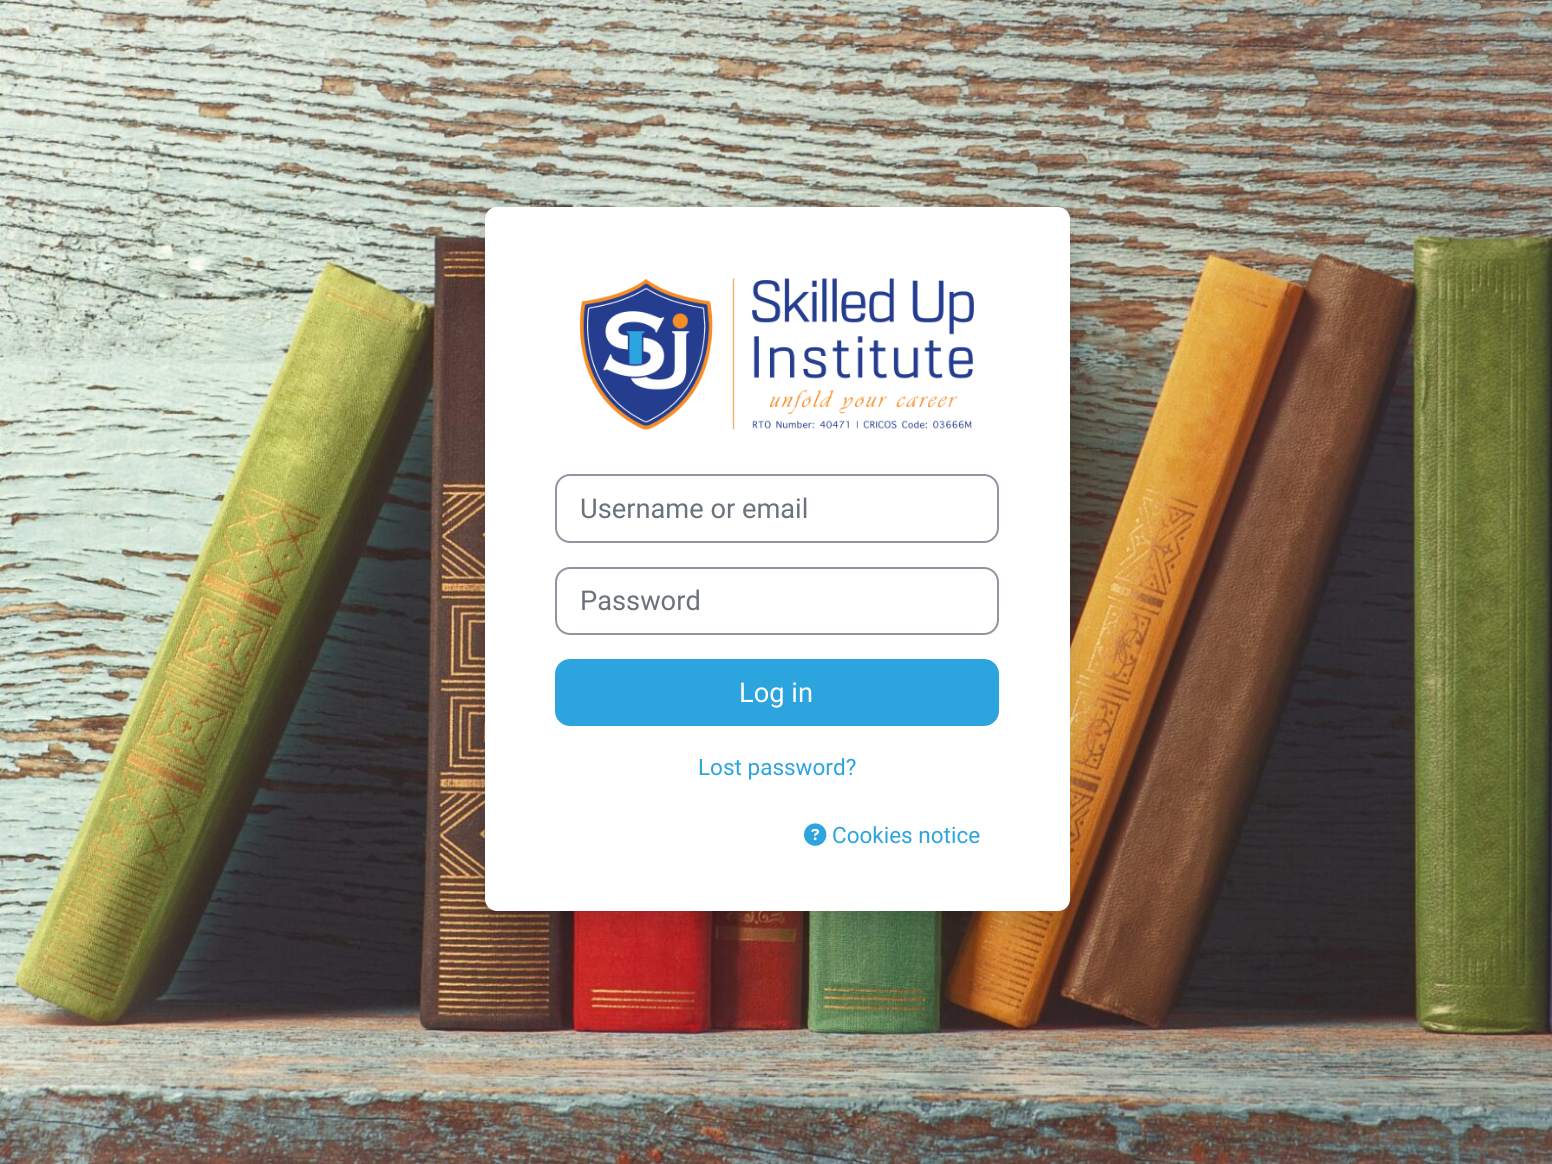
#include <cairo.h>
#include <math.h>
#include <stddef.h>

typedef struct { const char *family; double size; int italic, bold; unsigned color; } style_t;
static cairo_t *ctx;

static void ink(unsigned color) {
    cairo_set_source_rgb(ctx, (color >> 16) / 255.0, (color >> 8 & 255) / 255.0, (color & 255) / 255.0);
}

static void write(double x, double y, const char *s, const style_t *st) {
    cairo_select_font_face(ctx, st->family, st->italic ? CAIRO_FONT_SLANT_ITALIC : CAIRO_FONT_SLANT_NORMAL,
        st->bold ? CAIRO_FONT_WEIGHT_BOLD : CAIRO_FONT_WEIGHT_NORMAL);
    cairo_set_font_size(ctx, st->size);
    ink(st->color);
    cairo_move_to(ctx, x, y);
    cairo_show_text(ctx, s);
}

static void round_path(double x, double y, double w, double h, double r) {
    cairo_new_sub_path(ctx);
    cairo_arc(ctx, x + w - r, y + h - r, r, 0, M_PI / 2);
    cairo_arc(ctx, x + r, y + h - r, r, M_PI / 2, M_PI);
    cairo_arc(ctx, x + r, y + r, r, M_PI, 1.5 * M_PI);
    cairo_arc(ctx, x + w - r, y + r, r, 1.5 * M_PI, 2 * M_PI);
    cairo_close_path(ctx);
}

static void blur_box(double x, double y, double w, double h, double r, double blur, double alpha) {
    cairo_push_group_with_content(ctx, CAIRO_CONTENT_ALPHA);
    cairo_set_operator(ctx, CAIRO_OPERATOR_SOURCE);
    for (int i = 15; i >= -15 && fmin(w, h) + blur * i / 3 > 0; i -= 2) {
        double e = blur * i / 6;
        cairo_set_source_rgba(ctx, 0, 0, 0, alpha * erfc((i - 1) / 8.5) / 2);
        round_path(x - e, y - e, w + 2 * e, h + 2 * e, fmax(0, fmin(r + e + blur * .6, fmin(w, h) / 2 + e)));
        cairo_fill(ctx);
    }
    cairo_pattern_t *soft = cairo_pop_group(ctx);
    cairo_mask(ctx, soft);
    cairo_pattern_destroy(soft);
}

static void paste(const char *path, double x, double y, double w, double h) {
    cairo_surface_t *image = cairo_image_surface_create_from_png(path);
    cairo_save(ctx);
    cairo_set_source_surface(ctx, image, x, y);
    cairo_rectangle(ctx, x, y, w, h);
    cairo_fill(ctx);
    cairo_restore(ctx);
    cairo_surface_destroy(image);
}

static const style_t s1 = {"Roboto", 27.25, 0, 0, 0x6a737b};
static const style_t s2 = {"Roboto", 27.25, 0, 0, 0xffffff};
static const style_t s3 = {"Roboto", 22.5, 0, 0, 0x2ca5de};

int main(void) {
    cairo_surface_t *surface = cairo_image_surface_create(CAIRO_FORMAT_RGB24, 1552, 1164);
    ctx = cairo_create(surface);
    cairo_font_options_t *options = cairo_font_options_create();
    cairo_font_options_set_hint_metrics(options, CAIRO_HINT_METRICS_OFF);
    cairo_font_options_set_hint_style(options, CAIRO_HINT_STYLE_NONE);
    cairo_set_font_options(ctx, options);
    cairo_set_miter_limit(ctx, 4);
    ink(0xffffff);
    cairo_paint(ctx);
    paste("pic1.png", 0, 0, 1552, 1164);
    ink(0x000000);
    blur_box(485, 219, 585, 704, 12, 12, 0.15);
    ink(0xffffff);
    round_path(485, 207, 585, 704, 12);
    cairo_fill(ctx);
    paste("pic2.png", 579, 278, 395, 153);
    round_path(556, 475, 442, 67, 14);
    ink(0x8f959e);
    cairo_stroke(ctx);
    write(580, 518, "Username or email", &s1);
    round_path(556, 568, 442, 66, 14);
    ink(0x8f959e);
    cairo_stroke(ctx);
    write(580, 610, "Password", &s1);
    ink(0x2ca5de);
    round_path(556, 660, 442, 65, 14);
    cairo_fill_preserve(ctx);
    cairo_stroke(ctx);
    write(739, 702, "Log in", &s2);
    write(698, 775, "Lost password?", &s3);
    paste("pic3.png", 804, 823, 23, 23);
    write(832, 843, "Cookies notice", &s3);
    cairo_surface_write_to_png(surface, "screenshot.png");
    cairo_font_options_destroy(options);
    cairo_destroy(ctx);
    cairo_surface_destroy(surface);
    return 0;
}
